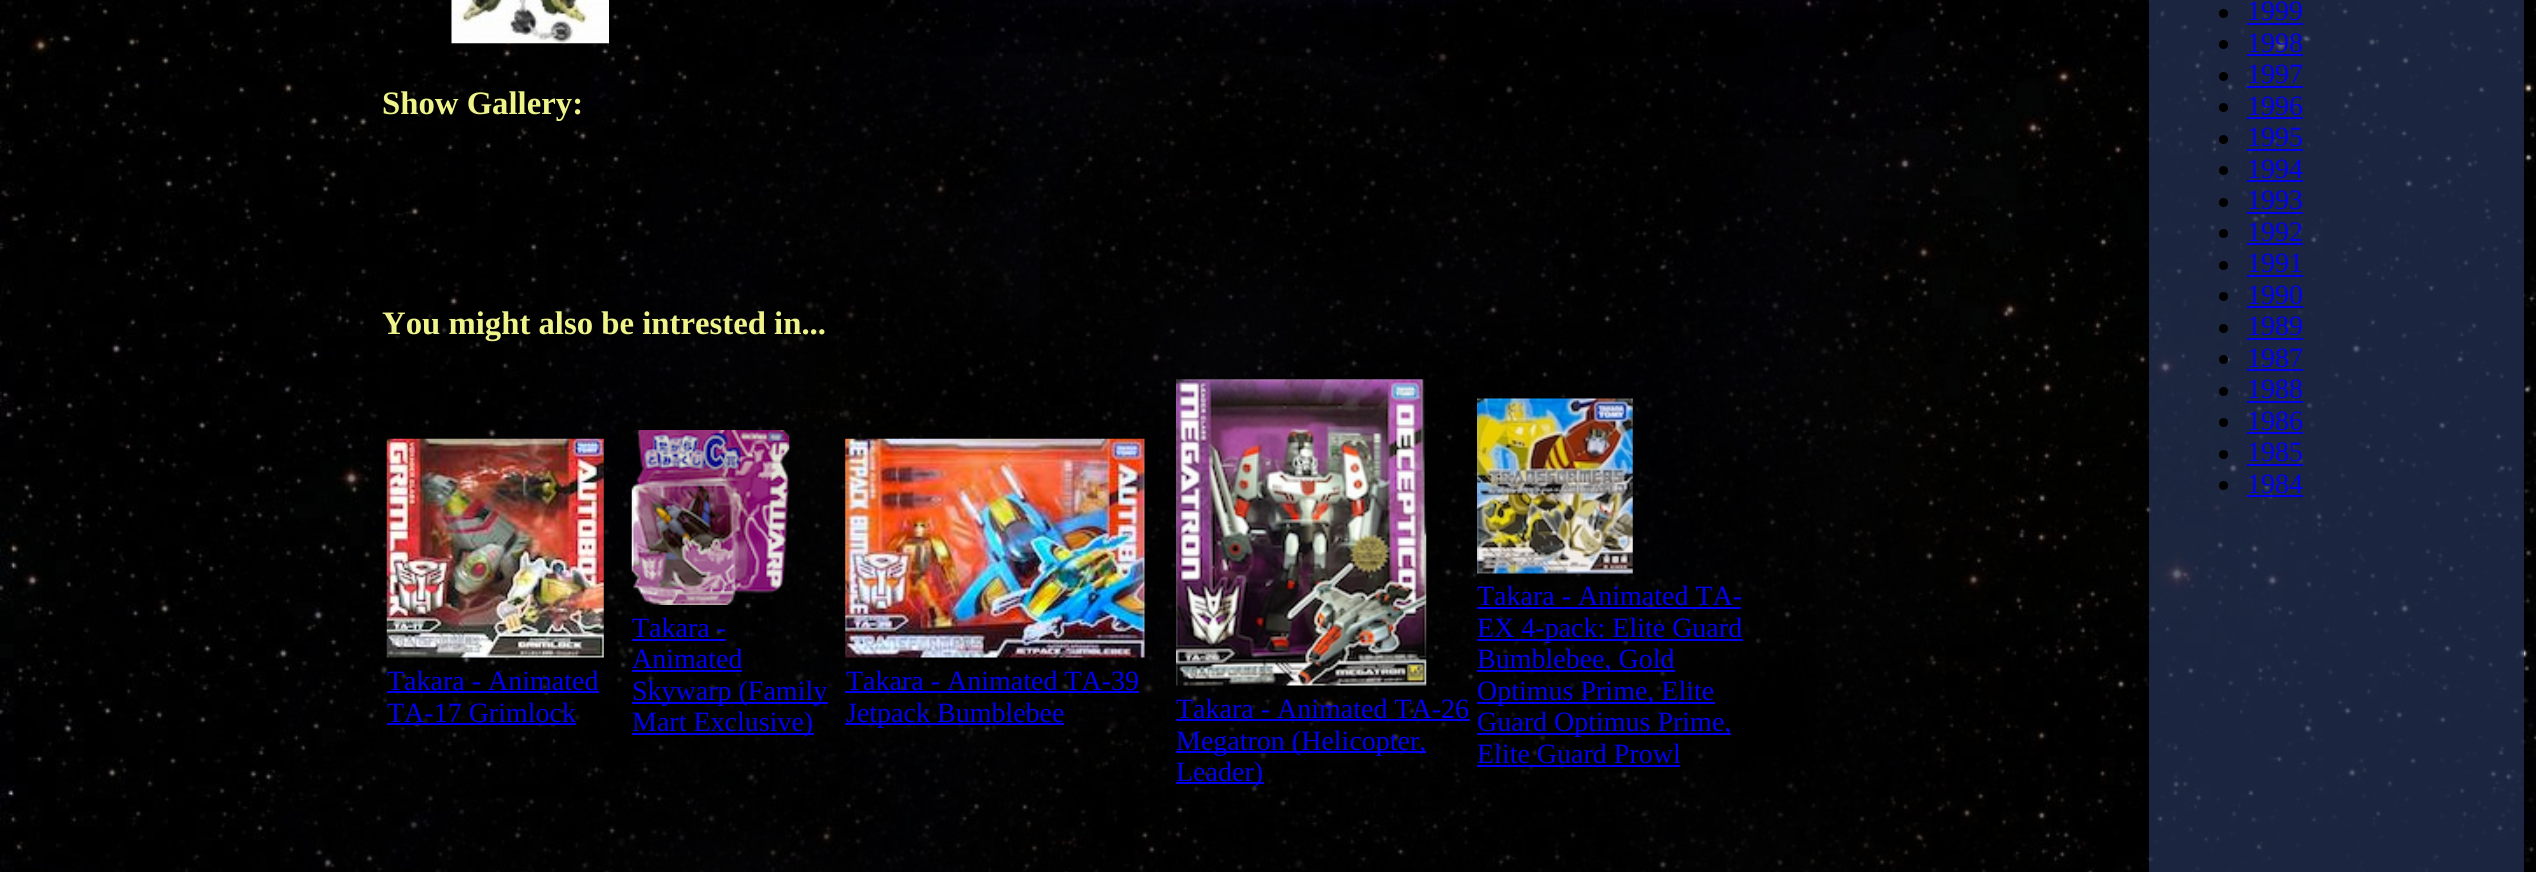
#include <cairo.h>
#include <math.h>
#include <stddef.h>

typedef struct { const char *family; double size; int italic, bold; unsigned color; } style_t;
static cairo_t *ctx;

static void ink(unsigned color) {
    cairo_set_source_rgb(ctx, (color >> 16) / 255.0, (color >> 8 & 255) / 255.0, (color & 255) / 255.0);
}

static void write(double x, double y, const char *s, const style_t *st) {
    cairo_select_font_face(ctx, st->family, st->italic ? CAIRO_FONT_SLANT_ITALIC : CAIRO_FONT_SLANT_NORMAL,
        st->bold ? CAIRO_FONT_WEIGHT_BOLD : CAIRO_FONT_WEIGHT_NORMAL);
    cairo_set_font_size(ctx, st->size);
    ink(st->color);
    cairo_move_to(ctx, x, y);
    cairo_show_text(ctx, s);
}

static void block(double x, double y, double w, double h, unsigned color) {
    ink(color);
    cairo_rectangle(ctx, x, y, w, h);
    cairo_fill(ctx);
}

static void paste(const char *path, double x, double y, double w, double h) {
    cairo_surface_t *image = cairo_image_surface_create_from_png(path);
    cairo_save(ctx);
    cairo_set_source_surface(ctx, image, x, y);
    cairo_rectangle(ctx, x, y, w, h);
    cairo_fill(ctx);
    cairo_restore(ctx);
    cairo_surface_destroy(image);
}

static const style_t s1 = {"Liberation Serif", 32.75, 0, 1, 0xeef489};
static const style_t s2 = {"Liberation Serif", 28, 0, 0, 0x0000ee};

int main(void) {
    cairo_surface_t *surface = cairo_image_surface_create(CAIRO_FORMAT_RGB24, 2536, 872);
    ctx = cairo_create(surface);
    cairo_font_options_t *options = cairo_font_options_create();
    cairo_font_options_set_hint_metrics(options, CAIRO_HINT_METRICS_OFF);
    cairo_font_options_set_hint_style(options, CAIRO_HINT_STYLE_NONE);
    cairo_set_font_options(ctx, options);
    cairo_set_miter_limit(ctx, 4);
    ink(0xffffff);
    cairo_paint(ctx);
    paste("pic1.png", 0, 0, 2536, 872);
    paste("pic2.png", 451, 0, 158, 44);
    write(382, 114, "Show Gallery:", &s1);
    write(382, 334, "You might also be intrested in...", &s1);
    paste("pic3.png", 386, 438, 218, 220);
    write(387, 690, "Takara - Animated", &s2);
    block(387, 691, 212, 2, 0x0000ee);
    write(387, 722, "TA-17 Grimlock", &s2);
    block(387, 723, 189, 2, 0x0000ee);
    paste("pic4.png", 631, 430, 159, 175);
    write(632, 637, "Takara -", &s2);
    block(632, 639, 94, 2, 0x0000ee);
    write(632, 668, "Animated", &s2);
    block(632, 670, 110, 2, 0x0000ee);
    block(632, 702, 196, 2, 0x0000ee);
    write(632, 700, "Skywarp (Family", &s2);
    block(632, 733, 182, 2, 0x0000ee);
    write(632, 731, "Mart Exclusive)", &s2);
    paste("pic5.png", 845, 438, 300, 220);
    write(846, 690, "Takara - Animated TA-39", &s2);
    block(845, 691, 294, 2, 0x0000ee);
    block(845, 723, 219, 2, 0x0000ee);
    write(846, 722, "Jetpack Bumblebee", &s2);
    paste("pic6.png", 1176, 379, 251, 307);
    write(1176, 718, "Takara - Animated TA-26", &s2);
    block(1176, 719, 294, 2, 0x0000ee);
    block(1176, 751, 250, 2, 0x0000ee);
    write(1176, 750, "Megatron (Helicopter,", &s2);
    block(1176, 782, 88, 2, 0x0000ee);
    write(1176, 781, "Leader)", &s2);
    paste("pic7.png", 1477, 398, 156, 176);
    write(1477, 605, "Takara - Animated TA-", &s2);
    block(1477, 607, 264, 2, 0x0000ee);
    block(1477, 639, 266, 2, 0x0000ee);
    write(1477, 637, "EX 4-pack: Elite Guard", &s2);
    block(1477, 670, 198, 2, 0x0000ee);
    write(1477, 668, "Bumblebee, Gold", &s2);
    block(1477, 702, 238, 2, 0x0000ee);
    write(1477, 700, "Optimus Prime, Elite", &s2);
    block(1477, 733, 254, 2, 0x0000ee);
    write(1477, 731, "Guard Optimus Prime,", &s2);
    write(1477, 763, "Elite Guard Prowl", &s2);
    block(1477, 765, 203, 2, 0x0000ee);
    cairo_set_source_rgba(ctx, 0.212, 0.294, 0.494, 0.5);
    cairo_rectangle(ctx, 2149, 0, 375, 872);
    cairo_fill(ctx);
    ink(0x000000);
    cairo_arc(ctx, 2223.5, 13.5, 4.5, 0, 2 * M_PI);
    cairo_fill(ctx);
    write(2247, 20, "1999", &s2);
    block(2247, 23, 56, 2, 0x0000ee);
    ink(0x000000);
    cairo_new_path(ctx);
    cairo_arc(ctx, 2223.5, 44.5, 4.5, 0, 2 * M_PI);
    cairo_fill(ctx);
    write(2247, 52, "1998", &s2);
    block(2247, 54, 56, 2, 0x0000ee);
    ink(0x000000);
    cairo_new_path(ctx);
    cairo_arc(ctx, 2223.5, 76.5, 4.5, 0, 2 * M_PI);
    cairo_fill(ctx);
    write(2247, 83, "1997", &s2);
    block(2247, 86, 56, 2, 0x0000ee);
    ink(0x000000);
    cairo_new_path(ctx);
    cairo_arc(ctx, 2223.5, 107.5, 4.5, 0, 2 * M_PI);
    cairo_fill(ctx);
    write(2247, 115, "1996", &s2);
    block(2247, 117, 56, 2, 0x0000ee);
    ink(0x000000);
    cairo_new_path(ctx);
    cairo_arc(ctx, 2223.5, 139.5, 4.5, 0, 2 * M_PI);
    cairo_fill(ctx);
    write(2247, 146, "1995", &s2);
    block(2247, 149, 56, 2, 0x0000ee);
    ink(0x000000);
    cairo_new_path(ctx);
    cairo_arc(ctx, 2223.5, 170.5, 4.5, 0, 2 * M_PI);
    cairo_fill(ctx);
    write(2247, 178, "1994", &s2);
    block(2247, 180, 56, 2, 0x0000ee);
    ink(0x000000);
    cairo_new_path(ctx);
    cairo_arc(ctx, 2223.5, 202.5, 4.5, 0, 2 * M_PI);
    cairo_fill(ctx);
    write(2247, 209, "1993", &s2);
    block(2247, 212, 56, 2, 0x0000ee);
    ink(0x000000);
    cairo_new_path(ctx);
    cairo_arc(ctx, 2223.5, 233.5, 4.5, 0, 2 * M_PI);
    cairo_fill(ctx);
    write(2247, 241, "1992", &s2);
    block(2247, 243, 56, 2, 0x0000ee);
    ink(0x000000);
    cairo_new_path(ctx);
    cairo_arc(ctx, 2223.5, 265.5, 4.5, 0, 2 * M_PI);
    cairo_fill(ctx);
    write(2247, 272, "1991", &s2);
    block(2247, 275, 56, 2, 0x0000ee);
    ink(0x000000);
    cairo_new_path(ctx);
    cairo_arc(ctx, 2223.5, 296.5, 4.5, 0, 2 * M_PI);
    cairo_fill(ctx);
    write(2247, 304, "1990", &s2);
    block(2247, 306, 56, 2, 0x0000ee);
    ink(0x000000);
    cairo_new_path(ctx);
    cairo_arc(ctx, 2223.5, 328.5, 4.5, 0, 2 * M_PI);
    cairo_fill(ctx);
    write(2247, 335, "1989", &s2);
    block(2247, 338, 56, 2, 0x0000ee);
    ink(0x000000);
    cairo_new_path(ctx);
    cairo_arc(ctx, 2223.5, 359.5, 4.5, 0, 2 * M_PI);
    cairo_fill(ctx);
    write(2247, 367, "1987", &s2);
    block(2247, 369, 56, 2, 0x0000ee);
    ink(0x000000);
    cairo_new_path(ctx);
    cairo_arc(ctx, 2223.5, 391.5, 4.5, 0, 2 * M_PI);
    cairo_fill(ctx);
    write(2247, 398, "1988", &s2);
    block(2247, 401, 56, 2, 0x0000ee);
    ink(0x000000);
    cairo_new_path(ctx);
    cairo_arc(ctx, 2223.5, 422.5, 4.5, 0, 2 * M_PI);
    cairo_fill(ctx);
    write(2247, 430, "1986", &s2);
    block(2247, 432, 56, 2, 0x0000ee);
    ink(0x000000);
    cairo_new_path(ctx);
    cairo_arc(ctx, 2223.5, 454.5, 4.5, 0, 2 * M_PI);
    cairo_fill(ctx);
    write(2247, 461, "1985", &s2);
    block(2247, 464, 56, 2, 0x0000ee);
    ink(0x000000);
    cairo_new_path(ctx);
    cairo_arc(ctx, 2223.5, 485.5, 4.5, 0, 2 * M_PI);
    cairo_fill(ctx);
    write(2247, 493, "1984", &s2);
    block(2247, 495, 56, 2, 0x0000ee);
    cairo_surface_write_to_png(surface, "screenshot.png");
    cairo_font_options_destroy(options);
    cairo_destroy(ctx);
    cairo_surface_destroy(surface);
    return 0;
}
